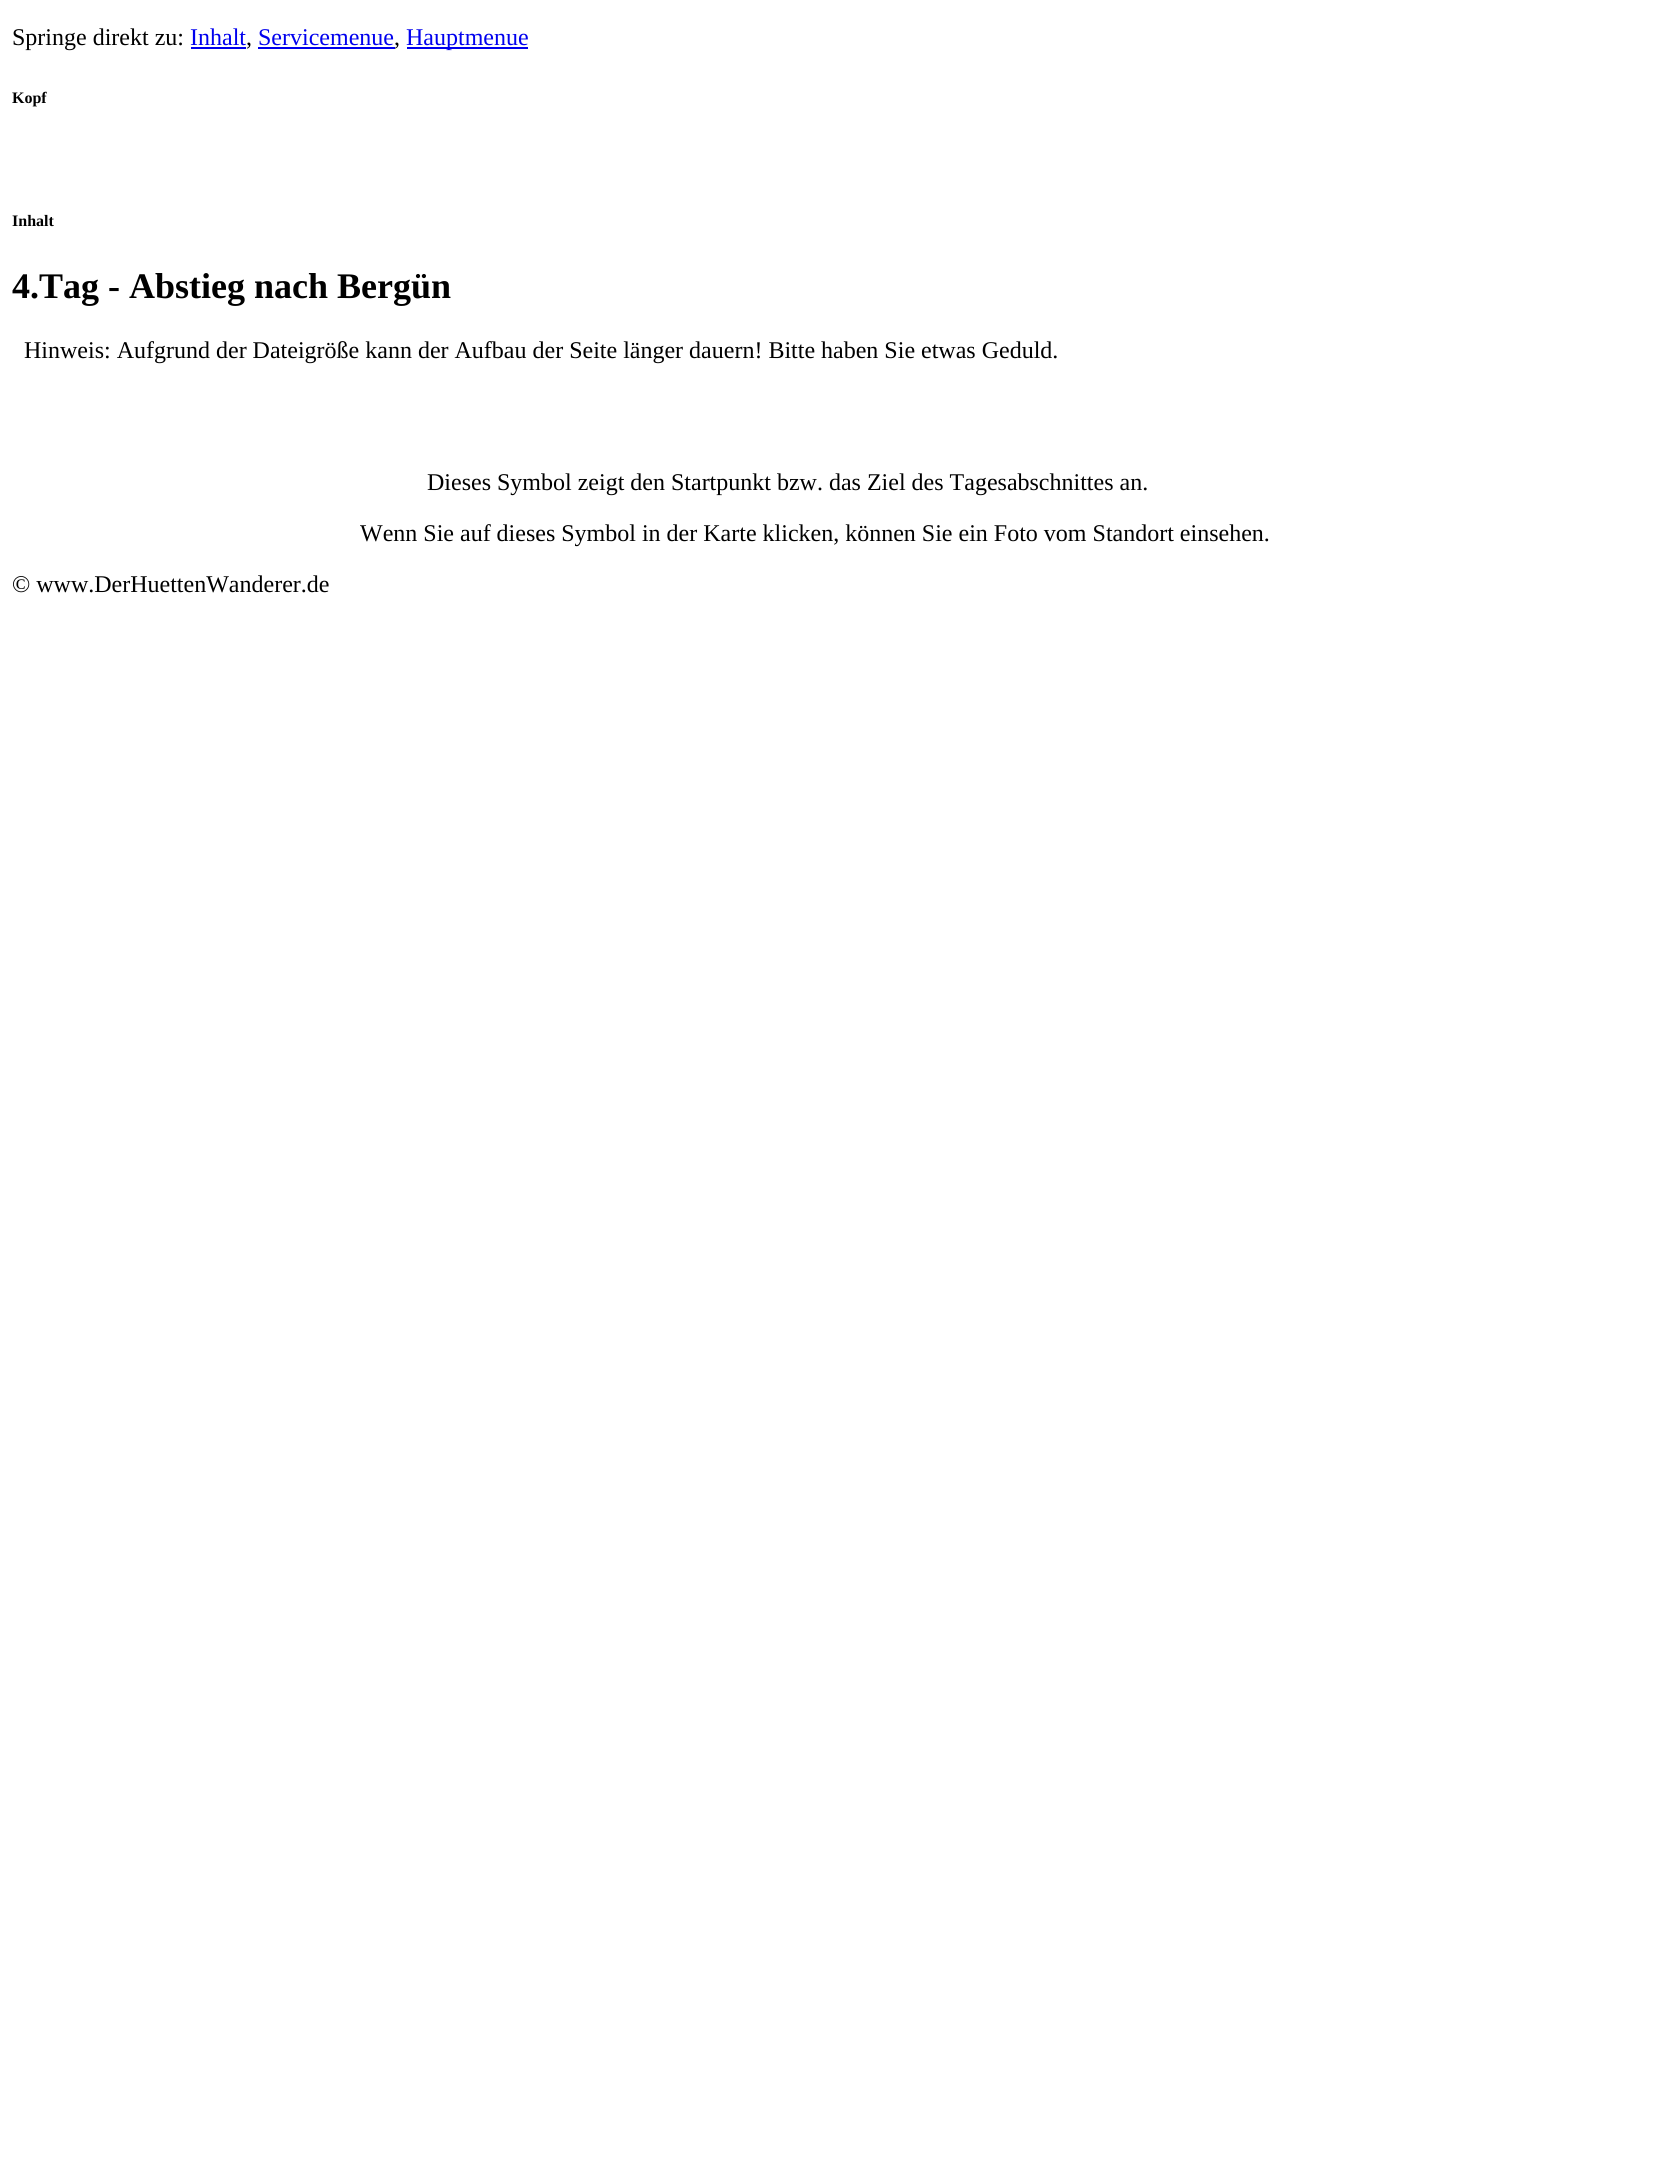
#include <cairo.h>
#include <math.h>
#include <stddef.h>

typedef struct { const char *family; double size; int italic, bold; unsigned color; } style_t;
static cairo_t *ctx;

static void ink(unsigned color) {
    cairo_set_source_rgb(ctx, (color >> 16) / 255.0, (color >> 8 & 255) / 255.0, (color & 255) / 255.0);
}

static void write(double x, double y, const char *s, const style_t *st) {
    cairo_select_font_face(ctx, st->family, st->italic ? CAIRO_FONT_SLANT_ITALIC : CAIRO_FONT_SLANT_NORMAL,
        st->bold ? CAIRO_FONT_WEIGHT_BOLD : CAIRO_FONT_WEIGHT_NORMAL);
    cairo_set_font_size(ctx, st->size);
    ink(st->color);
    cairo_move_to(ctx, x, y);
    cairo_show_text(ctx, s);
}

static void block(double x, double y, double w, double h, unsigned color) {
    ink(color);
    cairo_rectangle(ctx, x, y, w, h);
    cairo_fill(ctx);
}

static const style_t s1 = {"Liberation Serif", 24, 0, 0, 0x000000};
static const style_t s2 = {"Liberation Serif", 24, 0, 0, 0x0000ee};
static const style_t s3 = {"Liberation Serif", 16, 0, 1, 0x000000};
static const style_t s4 = {"Liberation Serif", 36, 0, 1, 0x000000};

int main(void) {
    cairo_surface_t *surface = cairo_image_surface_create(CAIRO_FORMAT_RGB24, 1655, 2167);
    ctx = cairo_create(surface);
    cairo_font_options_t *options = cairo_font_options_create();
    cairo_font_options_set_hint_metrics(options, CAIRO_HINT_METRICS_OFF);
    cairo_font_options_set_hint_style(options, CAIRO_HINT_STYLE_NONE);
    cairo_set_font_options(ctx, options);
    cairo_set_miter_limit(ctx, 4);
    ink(0xffffff);
    cairo_paint(ctx);
    write(12, 45, "Springe direkt zu:", &s1);
    write(190, 45, "Inhalt", &s2);
    block(191, 47, 55, 2, 0x0000ee);
    write(246, 45, ",", &s1);
    write(258, 45, "Servicemenue", &s2);
    block(258, 47, 137, 2, 0x0000ee);
    write(394, 45, ",", &s1);
    block(407, 47, 121, 2, 0x0000ee);
    write(406, 45, "Hauptmenue", &s2);
    write(12, 103, "Kopf", &s3);
    write(12, 226, "Inhalt", &s3);
    write(12, 298, "4.Tag - Abstieg nach Bergün", &s4);
    write(24, 358, "Hinweis: Aufgrund der Dateigröße kann der Aufbau der Seite länger dauern! Bitte haben Sie etwas Geduld.", &s1);
    write(427, 490, "Dieses Symbol zeigt den Startpunkt bzw. das Ziel des Tagesabschnittes an.", &s1);
    write(360, 541, "Wenn Sie auf dieses Symbol in der Karte klicken, können Sie ein Foto vom Standort einsehen.", &s1);
    write(12, 592, "© www.DerHuettenWanderer.de", &s1);
    cairo_surface_write_to_png(surface, "screenshot.png");
    cairo_font_options_destroy(options);
    cairo_destroy(ctx);
    cairo_surface_destroy(surface);
    return 0;
}
